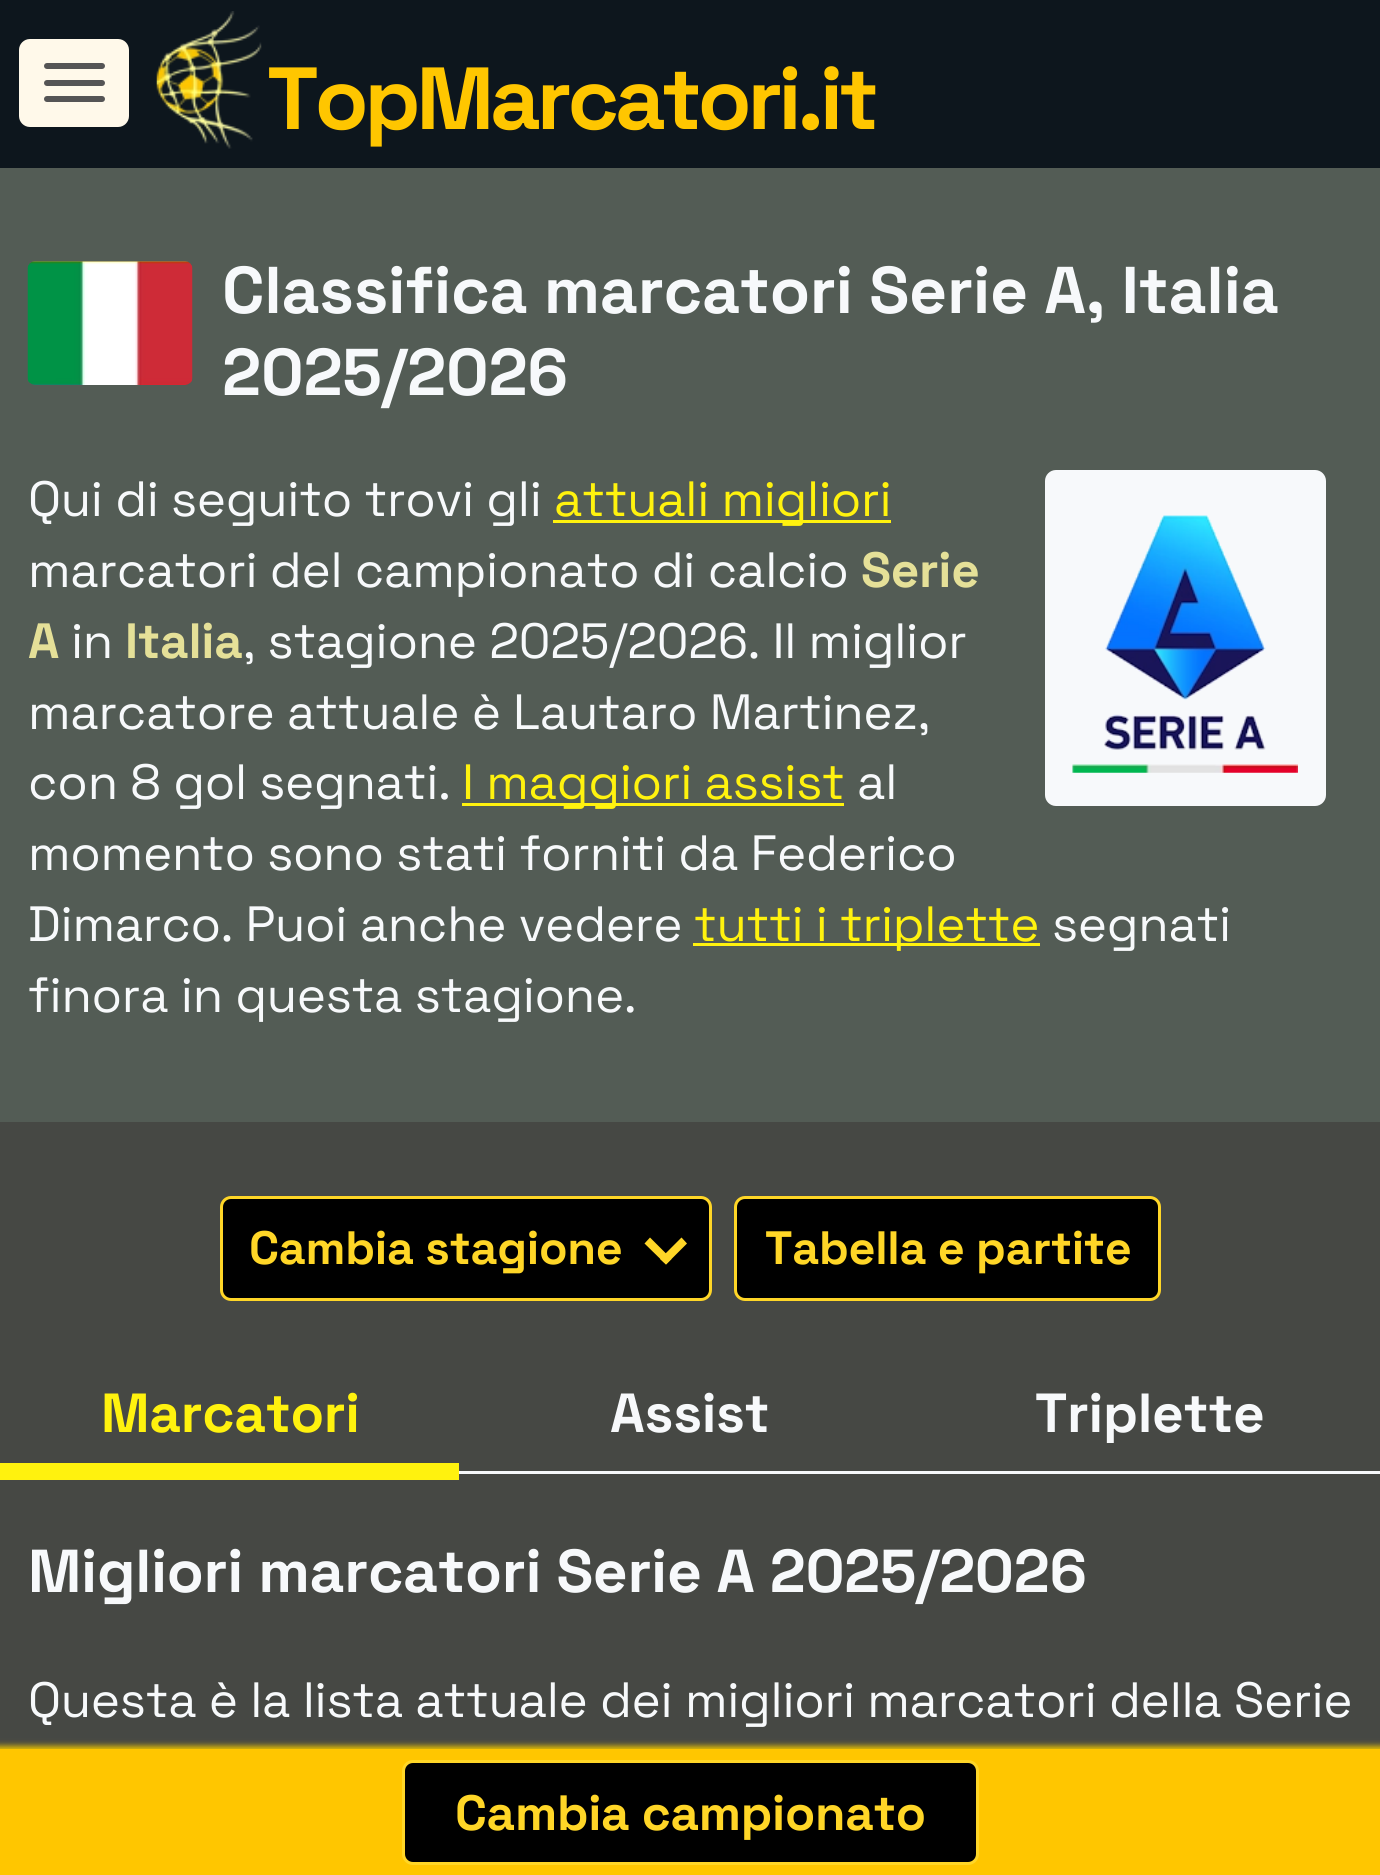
#include <cairo.h>
#include <math.h>
#include <stddef.h>

static cairo_t *ctx;

static void ink(unsigned color) {
    cairo_set_source_rgb(ctx, (color >> 16) / 255.0, (color >> 8 & 255) / 255.0, (color & 255) / 255.0);
}

static void write_spaced(double x, double y, const char *s, double letter, double word) {
    cairo_move_to(ctx, x, y);
    while (*s) {
        char ch[5] = {0};
        int n = 0;
        do ch[n++] = *s++; while ((*s & 0xC0) == 0x80);
        cairo_show_text(ctx, ch);
        cairo_rel_move_to(ctx, letter + word * (*ch == ' '), 0);
    }
}

static void block(double x, double y, double w, double h, unsigned color) {
    ink(color);
    cairo_rectangle(ctx, x, y, w, h);
    cairo_fill(ctx);
}

static void round_path(double x, double y, double w, double h, double r) {
    cairo_new_sub_path(ctx);
    cairo_arc(ctx, x + w - r, y + h - r, r, 0, M_PI / 2);
    cairo_arc(ctx, x + r, y + h - r, r, M_PI / 2, M_PI);
    cairo_arc(ctx, x + r, y + r, r, M_PI, 1.5 * M_PI);
    cairo_arc(ctx, x + w - r, y + r, r, 1.5 * M_PI, 2 * M_PI);
    cairo_close_path(ctx);
}

static void blur_box(double x, double y, double w, double h, double r, double blur, double alpha) {
    cairo_push_group_with_content(ctx, CAIRO_CONTENT_ALPHA);
    cairo_set_operator(ctx, CAIRO_OPERATOR_SOURCE);
    for (int i = 15; i >= -15 && fmin(w, h) + blur * i / 3 > 0; i -= 2) {
        double e = blur * i / 6;
        cairo_set_source_rgba(ctx, 0, 0, 0, alpha * erfc((i - 1) / 8.5) / 2);
        round_path(x - e, y - e, w + 2 * e, h + 2 * e, fmax(0, fmin(r + e + blur * .6, fmin(w, h) / 2 + e)));
        cairo_fill(ctx);
    }
    cairo_pattern_t *soft = cairo_pop_group(ctx);
    cairo_mask(ctx, soft);
    cairo_pattern_destroy(soft);
}

static void paste(const char *path, double x, double y, double w, double h) {
    cairo_surface_t *image = cairo_image_surface_create_from_png(path);
    cairo_save(ctx);
    cairo_set_source_surface(ctx, image, x, y);
    cairo_rectangle(ctx, x, y, w, h);
    cairo_fill(ctx);
    cairo_restore(ctx);
    cairo_surface_destroy(image);
}

int main(void) {
    cairo_surface_t *surface = cairo_image_surface_create(CAIRO_FORMAT_RGB24, 1380, 1875);
    ctx = cairo_create(surface);
    cairo_font_options_t *options = cairo_font_options_create();
    cairo_font_options_set_hint_metrics(options, CAIRO_HINT_METRICS_OFF);
    cairo_font_options_set_hint_style(options, CAIRO_HINT_STYLE_NONE);
    cairo_set_font_options(ctx, options);
    cairo_set_miter_limit(ctx, 4);
    ink(0x0d161d);
    cairo_paint(ctx);
    ink(0xfff9ea);
    round_path(19, 39, 110, 88, 11);
    cairo_fill(ctx);
    ink(0x555555);
    round_path(44, 63, 61, 6, 3);
    cairo_fill(ctx);
    round_path(44, 80, 61, 6, 3);
    cairo_fill(ctx);
    round_path(44, 96, 61, 6, 3);
    cairo_fill(ctx);
    paste("pic1.png", 156, 11, 106, 138);
    cairo_select_font_face(ctx, "Space Grotesk", CAIRO_FONT_SLANT_NORMAL, CAIRO_FONT_WEIGHT_BOLD);
    cairo_set_font_size(ctx, 88);
    ink(0xffc600);
    write_spaced(267, 129, "TopMarcatori.it", -4.1, 0);
    block(0, 168, 1380, 954, 0x535c55);
    paste("pic2.png", 27, 261, 166, 124);
    cairo_set_font_size(ctx, 66);
    ink(0xf7f9fb);
    write_spaced(222, 313, "Classifica marcatori Serie A, Italia", -0.28, 0);
    write_spaced(222, 395, "2025/2026", -0.28, 0);
    round_path(1045, 470, 281, 336, 11);
    cairo_fill(ctx);
    paste("pic3.png", 1072, 515, 226, 258);
    cairo_select_font_face(ctx, "Space Grotesk", CAIRO_FONT_SLANT_NORMAL, CAIRO_FONT_WEIGHT_NORMAL);
    cairo_set_font_size(ctx, 49.5);
    write_spaced(28, 516, "Qui di seguito trovi gli", -0.28, 0);
    block(553, 520, 338, 3, 0xfff20e);
    write_spaced(554, 516, "attuali migliori", -0.28, 0);
    ink(0xf7f9fb);
    write_spaced(28, 587, "marcatori del campionato di calcio", -0.28, 0);
    cairo_select_font_face(ctx, "Space Grotesk", CAIRO_FONT_SLANT_NORMAL, CAIRO_FONT_WEIGHT_BOLD);
    ink(0xe5e098);
    write_spaced(861, 587, "Serie", -0.28, 0);
    write_spaced(28, 658, "A", -0.28, 0);
    cairo_select_font_face(ctx, "Space Grotesk", CAIRO_FONT_SLANT_NORMAL, CAIRO_FONT_WEIGHT_NORMAL);
    ink(0xf7f9fb);
    write_spaced(71, 658, "in", -0.28, 0);
    cairo_select_font_face(ctx, "Space Grotesk", CAIRO_FONT_SLANT_NORMAL, CAIRO_FONT_WEIGHT_BOLD);
    ink(0xe5e098);
    write_spaced(125, 658, "Italia", -0.28, 0);
    cairo_select_font_face(ctx, "Space Grotesk", CAIRO_FONT_SLANT_NORMAL, CAIRO_FONT_WEIGHT_NORMAL);
    ink(0xf7f9fb);
    write_spaced(243, 658, ", stagione 2025/2026. Il miglior", -0.28, 0);
    write_spaced(28, 729, "marcatore attuale è Lautaro Martinez,", -0.28, 0);
    write_spaced(28, 799, "con 8 gol segnati.", -0.28, 0);
    block(462, 803, 382, 3, 0xfff20e);
    write_spaced(462, 799, "I maggiori assist", -0.28, 0);
    ink(0xf7f9fb);
    write_spaced(857, 799, "al", -0.28, 0);
    write_spaced(28, 870, "momento sono stati forniti da Federico", -0.28, 0);
    write_spaced(28, 941, "Dimarco. Puoi anche vedere", -0.28, 0);
    block(693, 943, 347, 3, 0xfff20e);
    write_spaced(694, 941, "tutti i triplette", -0.28, 0);
    ink(0xf7f9fb);
    write_spaced(1052, 941, "segnati", -0.28, 0);
    write_spaced(28, 1012, "finora in questa stagione.", -0.28, 0);
    block(0, 1122, 1380, 627, 0x464844);
    ink(0x000000);
    round_path(221.5, 1197.5, 489, 102, 9.5);
    cairo_fill_preserve(ctx);
    ink(0xffd627);
    cairo_set_line_width(ctx, 3);
    cairo_stroke(ctx);
    cairo_select_font_face(ctx, "Space Grotesk", CAIRO_FONT_SLANT_NORMAL, CAIRO_FONT_WEIGHT_BOLD);
    cairo_set_font_size(ctx, 46.75);
    write_spaced(249, 1264, "Cambia stagione", -0.28, 0);
    cairo_new_path(ctx);
    cairo_move_to(ctx, 681.5, 1237.5);
    cairo_line_to(ctx, 687, 1243.5);
    cairo_line_to(ctx, 666, 1264.5);
    cairo_line_to(ctx, 660, 1259);
    cairo_close_path(ctx);
    cairo_fill(ctx);
    cairo_new_path(ctx);
    cairo_move_to(ctx, 650, 1237.5);
    cairo_line_to(ctx, 671.5, 1259);
    cairo_line_to(ctx, 666, 1264.5);
    cairo_line_to(ctx, 644.5, 1243.5);
    cairo_close_path(ctx);
    cairo_fill(ctx);
    ink(0x000000);
    round_path(735.5, 1197.5, 424, 102, 9.5);
    cairo_fill_preserve(ctx);
    ink(0xffd627);
    cairo_stroke(ctx);
    write_spaced(765, 1264, "Tabella e partite", -0.28, 0);
    block(0, 1463, 459, 17, 0xfff20e);
    cairo_set_font_size(ctx, 55);
    write_spaced(101, 1432, "Marcatori", -0.28, 0);
    block(459, 1471, 921, 3, 0xf7f9fb);
    write_spaced(610, 1432, "Assist", -0.28, 0);
    write_spaced(1035, 1432, "Triplette", -0.28, 0);
    cairo_set_font_size(ctx, 60.5);
    write_spaced(28, 1592, "Migliori marcatori Serie A 2025/2026", -0.28, 0);
    cairo_select_font_face(ctx, "Space Grotesk", CAIRO_FONT_SLANT_NORMAL, CAIRO_FONT_WEIGHT_NORMAL);
    cairo_set_font_size(ctx, 49.5);
    write_spaced(28, 1717, "Questa è la lista attuale dei migliori marcatori della Serie", -0.28, 0);
    ink(0xe9c300);
    blur_box(-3, 1746, 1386, 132, 0, 3, 1);
    block(0, 1749, 1380, 126, 0xffc600);
    ink(0x000000);
    round_path(403.5, 1761.5, 574, 102, 9.5);
    cairo_fill_preserve(ctx);
    ink(0xffd627);
    cairo_stroke(ctx);
    cairo_select_font_face(ctx, "Space Grotesk", CAIRO_FONT_SLANT_NORMAL, CAIRO_FONT_WEIGHT_BOLD);
    write_spaced(455, 1830, "Cambia campionato", -0.28, 0);
    cairo_surface_write_to_png(surface, "screenshot.png");
    cairo_font_options_destroy(options);
    cairo_destroy(ctx);
    cairo_surface_destroy(surface);
    return 0;
}
